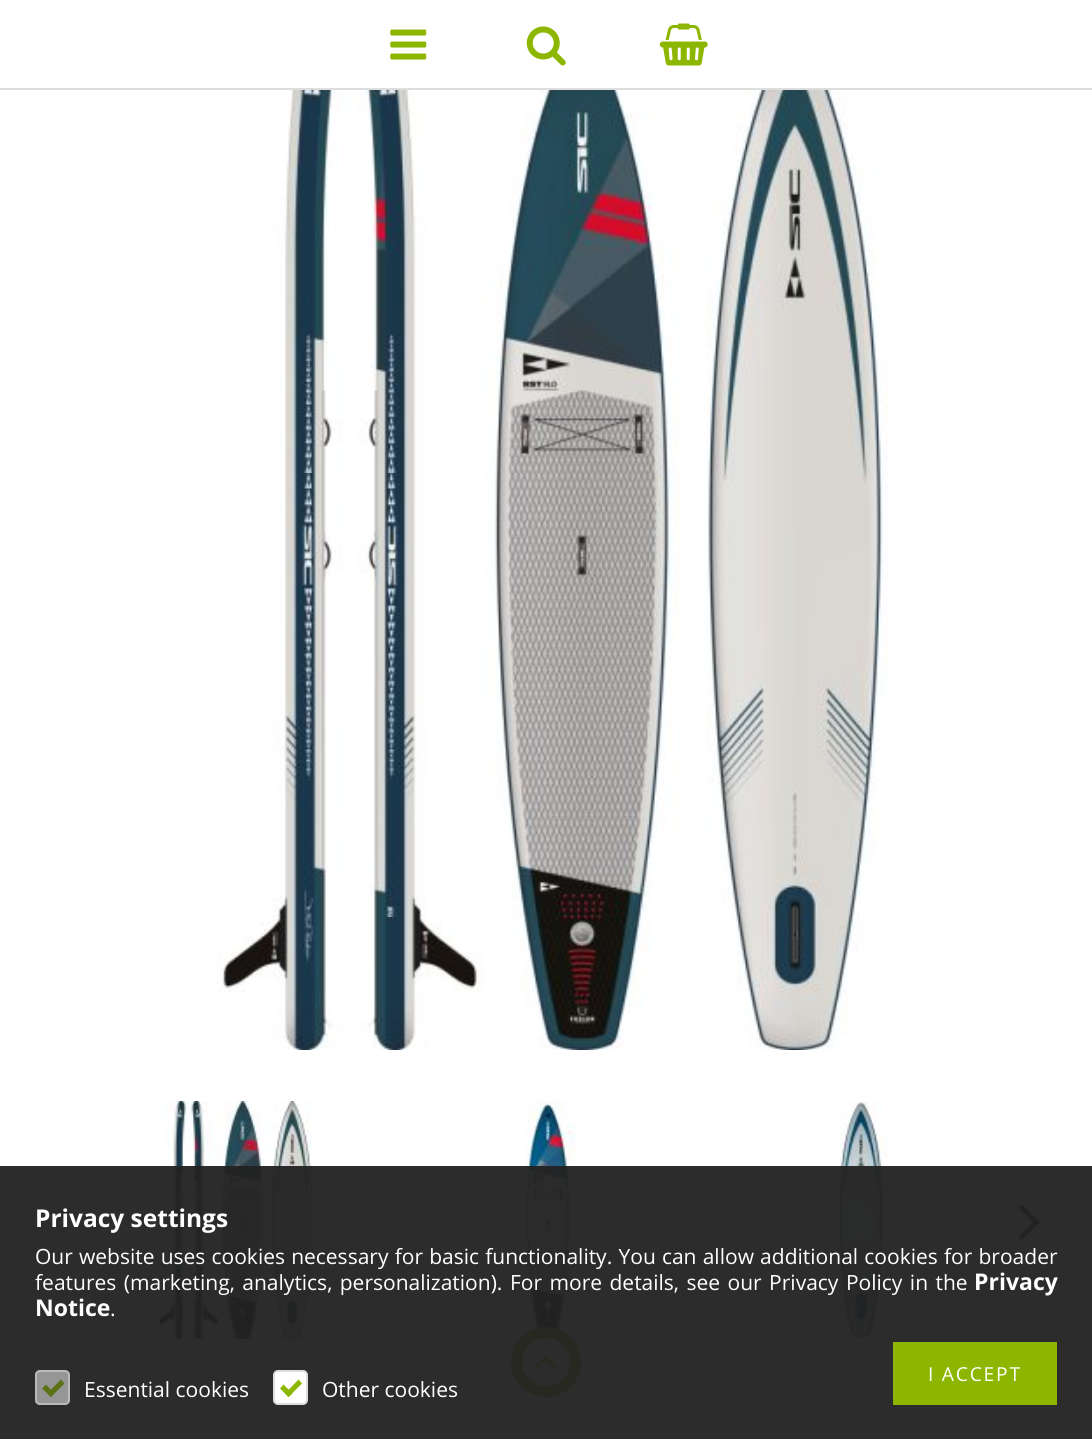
#include <cairo.h>
#include <math.h>
#include <stddef.h>

typedef struct { const char *family; double size; int italic, bold; unsigned color; } style_t;
static cairo_t *ctx;

static void ink(unsigned color) {
    cairo_set_source_rgb(ctx, (color >> 16) / 255.0, (color >> 8 & 255) / 255.0, (color & 255) / 255.0);
}

static void write(double x, double y, const char *s, const style_t *st) {
    cairo_select_font_face(ctx, st->family, st->italic ? CAIRO_FONT_SLANT_ITALIC : CAIRO_FONT_SLANT_NORMAL,
        st->bold ? CAIRO_FONT_WEIGHT_BOLD : CAIRO_FONT_WEIGHT_NORMAL);
    cairo_set_font_size(ctx, st->size);
    ink(st->color);
    cairo_move_to(ctx, x, y);
    cairo_show_text(ctx, s);
}

static void write_spaced(double x, double y, const char *s, double letter, double word) {
    cairo_move_to(ctx, x, y);
    while (*s) {
        char ch[5] = {0};
        int n = 0;
        do ch[n++] = *s++; while ((*s & 0xC0) == 0x80);
        cairo_show_text(ctx, ch);
        cairo_rel_move_to(ctx, letter + word * (*ch == ' '), 0);
    }
}

static void block(double x, double y, double w, double h, unsigned color) {
    ink(color);
    cairo_rectangle(ctx, x, y, w, h);
    cairo_fill(ctx);
}

static void round_path(double x, double y, double w, double h, double r) {
    cairo_new_sub_path(ctx);
    cairo_arc(ctx, x + w - r, y + h - r, r, 0, M_PI / 2);
    cairo_arc(ctx, x + r, y + h - r, r, M_PI / 2, M_PI);
    cairo_arc(ctx, x + r, y + r, r, M_PI, 1.5 * M_PI);
    cairo_arc(ctx, x + w - r, y + r, r, 1.5 * M_PI, 2 * M_PI);
    cairo_close_path(ctx);
}

static void paste(const char *path, double x, double y, double w, double h) {
    cairo_surface_t *image = cairo_image_surface_create_from_png(path);
    cairo_save(ctx);
    cairo_set_source_surface(ctx, image, x, y);
    cairo_rectangle(ctx, x, y, w, h);
    cairo_fill(ctx);
    cairo_restore(ctx);
    cairo_surface_destroy(image);
}

static const style_t s1 = {"Open Sans", 24.5, 0, 1, 0xffffff};
static const style_t s2 = {"Open Sans", 23, 0, 1, 0xffffff};
static const style_t s3 = {"Open Sans", 21, 0, 0, 0xffffff};

int main(void) {
    cairo_surface_t *surface = cairo_image_surface_create(CAIRO_FORMAT_RGB24, 1092, 1439);
    ctx = cairo_create(surface);
    cairo_font_options_t *options = cairo_font_options_create();
    cairo_font_options_set_hint_metrics(options, CAIRO_HINT_METRICS_OFF);
    cairo_font_options_set_hint_style(options, CAIRO_HINT_STYLE_NONE);
    cairo_set_font_options(ctx, options);
    cairo_set_miter_limit(ctx, 4);
    ink(0xffffff);
    cairo_paint(ctx);
    block(0, 88, 1092, 2, 0xdddddd);
    paste("pic1.png", 390, 29, 37, 31);
    paste("pic2.png", 526, 26, 40, 40);
    paste("pic3.png", 659, 23, 49, 43);
    paste("pic4.png", 217, 90, 671, 960);
    paste("pic5.png", 50, 1204, 21, 36);
    paste("pic6.png", 152, 1101, 163, 238);
    paste("pic7.png", 526, 1101, 50, 238);
    paste("pic8.png", 838, 1101, 51, 238);
    paste("pic9.png", 1019, 1204, 21, 36);
    cairo_set_source_rgba(ctx, 1, 1, 1, 0.8);
    cairo_arc(ctx, 546, 1362, 29.5, 0, 2 * M_PI);
    cairo_fill_preserve(ctx);
    ink(0x8db600);
    cairo_set_line_width(ctx, 11);
    cairo_stroke(ctx);
    paste("pic10.png", 533, 1355, 25, 15);
    cairo_set_source_rgba(ctx, 0.133, 0.133, 0.133, 0.95);
    cairo_rectangle(ctx, 0, 1166, 1092, 273);
    cairo_fill(ctx);
    write(35, 1227, "Privacy settings", &s1);
    cairo_select_font_face(ctx, "Open Sans", CAIRO_FONT_SLANT_NORMAL, CAIRO_FONT_WEIGHT_NORMAL);
    cairo_set_font_size(ctx, 21);
    write_spaced(35, 1264, "Our website uses cookies necessary for basic functionality. You can allow additional cookies for broader", 0, 0.7);
    write_spaced(35, 1290, "features (marketing, analytics, personalization). For more details, see our Privacy Policy in the", 0, 2);
    write(974, 1290, "Privacy", &s2);
    write(35, 1316, "Notice", &s2);
    write(110, 1316, ".", &s3);
    block(893, 1342, 164, 63, 0x8db600);
    cairo_set_font_size(ctx, 19.25);
    ink(0xffffff);
    write_spaced(928, 1381, "I ACCEPT", 1.75, 0);
    cairo_set_source_rgba(ctx, 1, 1, 1, 0.5);
    round_path(35, 1370, 35, 35, 5);
    cairo_fill(ctx);
    round_path(36, 1371, 33, 33, 4);
    cairo_set_source_rgba(ctx, 0.867, 0.867, 0.867, 0.5);
    cairo_set_line_width(ctx, 2);
    cairo_stroke(ctx);
    ink(0x5d7217);
    cairo_new_path(ctx);
    cairo_move_to(ctx, 47, 1393.5);
    cairo_line_to(ctx, 61, 1379.5);
    cairo_line_to(ctx, 64.5, 1383.5);
    cairo_line_to(ctx, 51, 1397);
    cairo_close_path(ctx);
    cairo_fill(ctx);
    cairo_new_path(ctx);
    cairo_move_to(ctx, 42, 1388.5);
    cairo_line_to(ctx, 46, 1384.5);
    cairo_line_to(ctx, 54.5, 1393.5);
    cairo_line_to(ctx, 51, 1397);
    cairo_close_path(ctx);
    cairo_fill(ctx);
    write(84, 1397, "Essential cookies", &s3);
    round_path(274, 1371, 33, 33, 4);
    cairo_fill_preserve(ctx);
    ink(0xdddddd);
    cairo_stroke(ctx);
    ink(0x8db600);
    cairo_new_path(ctx);
    cairo_move_to(ctx, 285, 1393.5);
    cairo_line_to(ctx, 298.5, 1379.5);
    cairo_line_to(ctx, 302, 1383.5);
    cairo_line_to(ctx, 288.5, 1397);
    cairo_close_path(ctx);
    cairo_fill(ctx);
    cairo_new_path(ctx);
    cairo_move_to(ctx, 280, 1388.5);
    cairo_line_to(ctx, 283.5, 1384.5);
    cairo_line_to(ctx, 292.5, 1393.5);
    cairo_line_to(ctx, 288.5, 1397);
    cairo_close_path(ctx);
    cairo_fill(ctx);
    write(322, 1397, "Other cookies", &s3);
    cairo_surface_write_to_png(surface, "screenshot.png");
    cairo_font_options_destroy(options);
    cairo_destroy(ctx);
    cairo_surface_destroy(surface);
    return 0;
}
